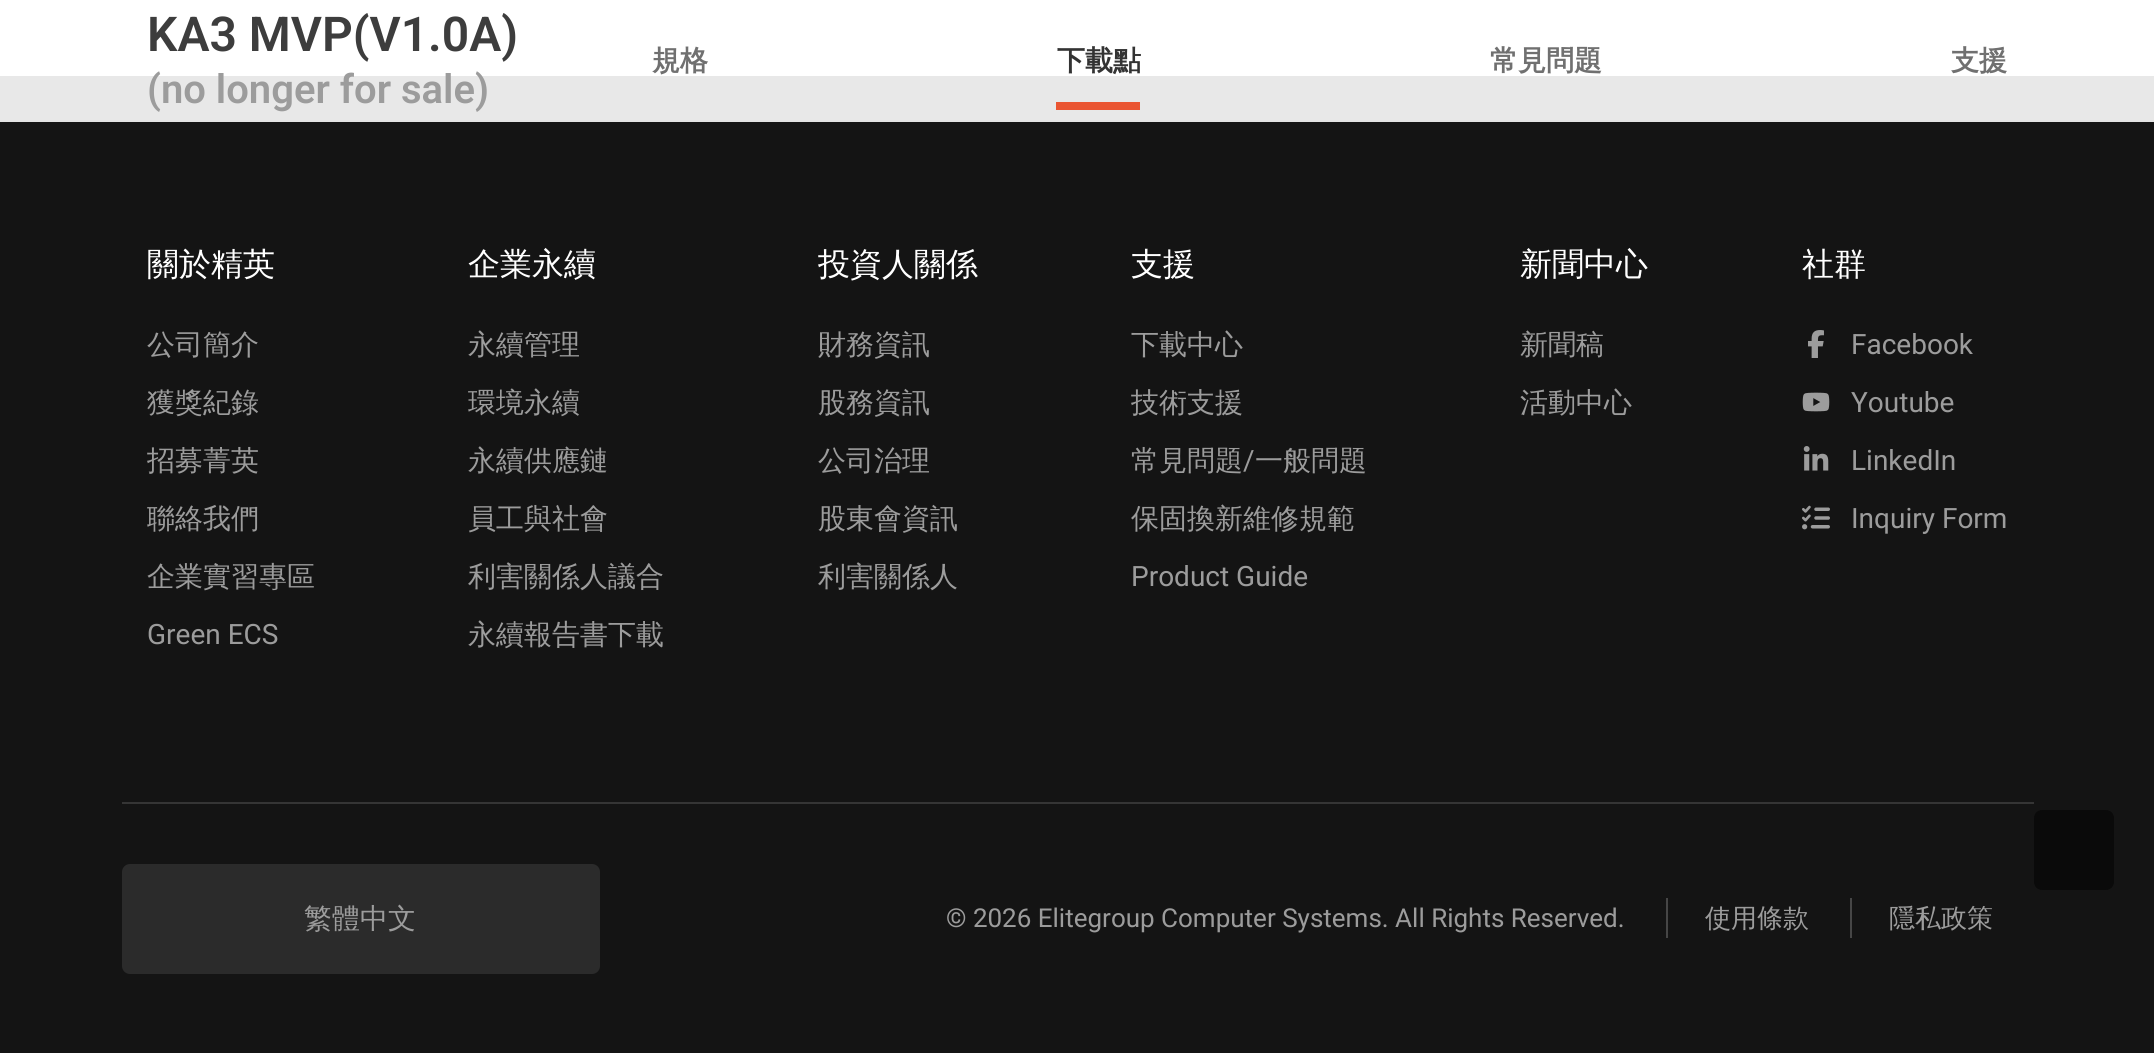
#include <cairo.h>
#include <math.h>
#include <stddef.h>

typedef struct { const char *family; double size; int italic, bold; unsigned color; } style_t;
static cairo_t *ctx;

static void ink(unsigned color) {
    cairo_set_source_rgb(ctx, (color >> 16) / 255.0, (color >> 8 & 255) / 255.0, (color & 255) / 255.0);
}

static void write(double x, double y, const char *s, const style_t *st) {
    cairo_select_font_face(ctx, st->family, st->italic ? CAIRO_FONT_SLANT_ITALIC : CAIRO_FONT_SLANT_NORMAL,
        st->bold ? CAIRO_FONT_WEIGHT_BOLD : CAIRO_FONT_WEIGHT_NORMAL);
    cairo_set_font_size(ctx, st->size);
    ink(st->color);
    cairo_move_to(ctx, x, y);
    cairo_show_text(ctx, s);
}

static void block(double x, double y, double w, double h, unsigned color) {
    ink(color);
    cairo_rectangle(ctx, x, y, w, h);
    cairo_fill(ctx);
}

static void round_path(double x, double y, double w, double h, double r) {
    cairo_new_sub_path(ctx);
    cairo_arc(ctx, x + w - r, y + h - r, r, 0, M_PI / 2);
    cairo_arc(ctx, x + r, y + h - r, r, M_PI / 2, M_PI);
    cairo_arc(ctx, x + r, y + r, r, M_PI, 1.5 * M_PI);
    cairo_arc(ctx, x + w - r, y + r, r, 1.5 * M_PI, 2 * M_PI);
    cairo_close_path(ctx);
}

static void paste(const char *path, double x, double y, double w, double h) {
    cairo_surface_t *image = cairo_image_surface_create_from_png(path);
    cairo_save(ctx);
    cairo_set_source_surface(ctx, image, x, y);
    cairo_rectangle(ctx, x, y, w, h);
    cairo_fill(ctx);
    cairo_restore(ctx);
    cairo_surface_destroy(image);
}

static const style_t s1 = {"Roboto SemiBold", 48, 0, 0, 0x3d3d3d};
static const style_t s2 = {"Roboto SemiBold", 40, 0, 0, 0x9c9c9c};
static const style_t s3 = {"WenQuanYi Zen Hei", 28, 0, 1, 0x707070};
static const style_t s4 = {"WenQuanYi Zen Hei", 28, 0, 1, 0x333333};
static const style_t s5 = {"WenQuanYi Zen Hei Medium", 32, 0, 0, 0xffffff};
static const style_t s6 = {"WenQuanYi Zen Hei Medium", 28, 0, 0, 0x9c9c9c};
static const style_t s7 = {"Roboto", 28, 0, 0, 0x9c9c9c};
static const style_t s8 = {"Roboto", 26, 0, 0, 0x9c9c9c};
static const style_t s9 = {"WenQuanYi Zen Hei Medium", 26, 0, 0, 0x9c9c9c};

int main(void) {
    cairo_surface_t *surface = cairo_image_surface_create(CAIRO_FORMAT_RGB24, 2154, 1053);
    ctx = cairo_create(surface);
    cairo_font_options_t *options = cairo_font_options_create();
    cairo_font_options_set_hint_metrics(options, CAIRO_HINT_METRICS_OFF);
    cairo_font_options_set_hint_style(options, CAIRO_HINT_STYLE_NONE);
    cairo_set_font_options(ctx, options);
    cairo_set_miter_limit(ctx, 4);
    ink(0xffffff);
    cairo_paint(ctx);
    block(0, 120, 2154, 2, 0xe3e3e3);
    write(147, 51, "KA3 MVP(V1.0A)", &s1);
    block(0, 76, 2154, 44, 0xe8e8e8);
    write(147, 103, "(no longer for sale)", &s2);
    write(652, 70, "規格", &s3);
    write(1057, 70, "下載點", &s4);
    block(1056, 102, 84, 8, 0xea5532);
    write(1490, 70, "常見問題", &s3);
    write(1951, 70, "支援", &s3);
    block(0, 122, 2154, 931, 0x141414);
    write(147, 275, "關於精英", &s5);
    write(147, 354, "公司簡介", &s6);
    write(147, 412, "獲獎紀錄", &s6);
    write(147, 470, "招募菁英", &s6);
    write(147, 528, "聯絡我們", &s6);
    write(147, 586, "企業實習專區", &s6);
    write(147, 644, "Green ECS", &s7);
    write(468, 275, "企業永續", &s5);
    write(468, 354, "永續管理", &s6);
    write(468, 412, "環境永續", &s6);
    write(468, 470, "永續供應鏈", &s6);
    write(468, 528, "員工與社會", &s6);
    write(468, 586, "利害關係人議合", &s6);
    write(468, 644, "永續報告書下載", &s6);
    write(818, 275, "投資人關係", &s5);
    write(818, 354, "財務資訊", &s6);
    write(818, 412, "股務資訊", &s6);
    write(818, 470, "公司治理", &s6);
    write(818, 528, "股東會資訊", &s6);
    write(818, 586, "利害關係人", &s6);
    write(1131, 275, "支援", &s5);
    write(1131, 354, "下載中心", &s6);
    write(1131, 412, "技術支援", &s6);
    write(1131, 470, "常見問題", &s6);
    write(1243, 470, "/", &s7);
    write(1255, 470, "一般問題", &s6);
    write(1131, 528, "保固換新維修規範", &s6);
    write(1131, 586, "Product Guide", &s7);
    write(1520, 275, "新聞中心", &s5);
    write(1520, 354, "新聞稿", &s6);
    write(1520, 412, "活動中心", &s6);
    write(1802, 275, "社群", &s5);
    paste("pic1.png", 1808, 330, 16, 28);
    write(1851, 354, "Facebook", &s7);
    paste("pic2.png", 1802, 392, 28, 20);
    write(1851, 412, "Youtube", &s7);
    paste("pic3.png", 1803, 446, 26, 25);
    write(1851, 470, "LinkedIn", &s7);
    paste("pic4.png", 1802, 505, 28, 25);
    write(1851, 528, "Inquiry Form", &s7);
    block(122, 802, 1912, 2, 0x353535);
    ink(0x2b2b2b);
    round_path(122, 864, 478, 110, 8);
    cairo_fill(ctx);
    write(304, 928, "繁體中文", &s6);
    write(946, 927, "© 2026 Elitegroup Computer Systems. All Rights Reserved.", &s8);
    block(1666, 898, 2, 40, 0x464646);
    write(1705, 927, "使用條款", &s9);
    block(1850, 898, 2, 40, 0x464646);
    write(1889, 927, "隱私政策", &s9);
    ink(0x0a0a0a);
    round_path(2034, 810, 80, 80, 8);
    cairo_fill(ctx);
    cairo_surface_write_to_png(surface, "screenshot.png");
    cairo_font_options_destroy(options);
    cairo_destroy(ctx);
    cairo_surface_destroy(surface);
    return 0;
}
